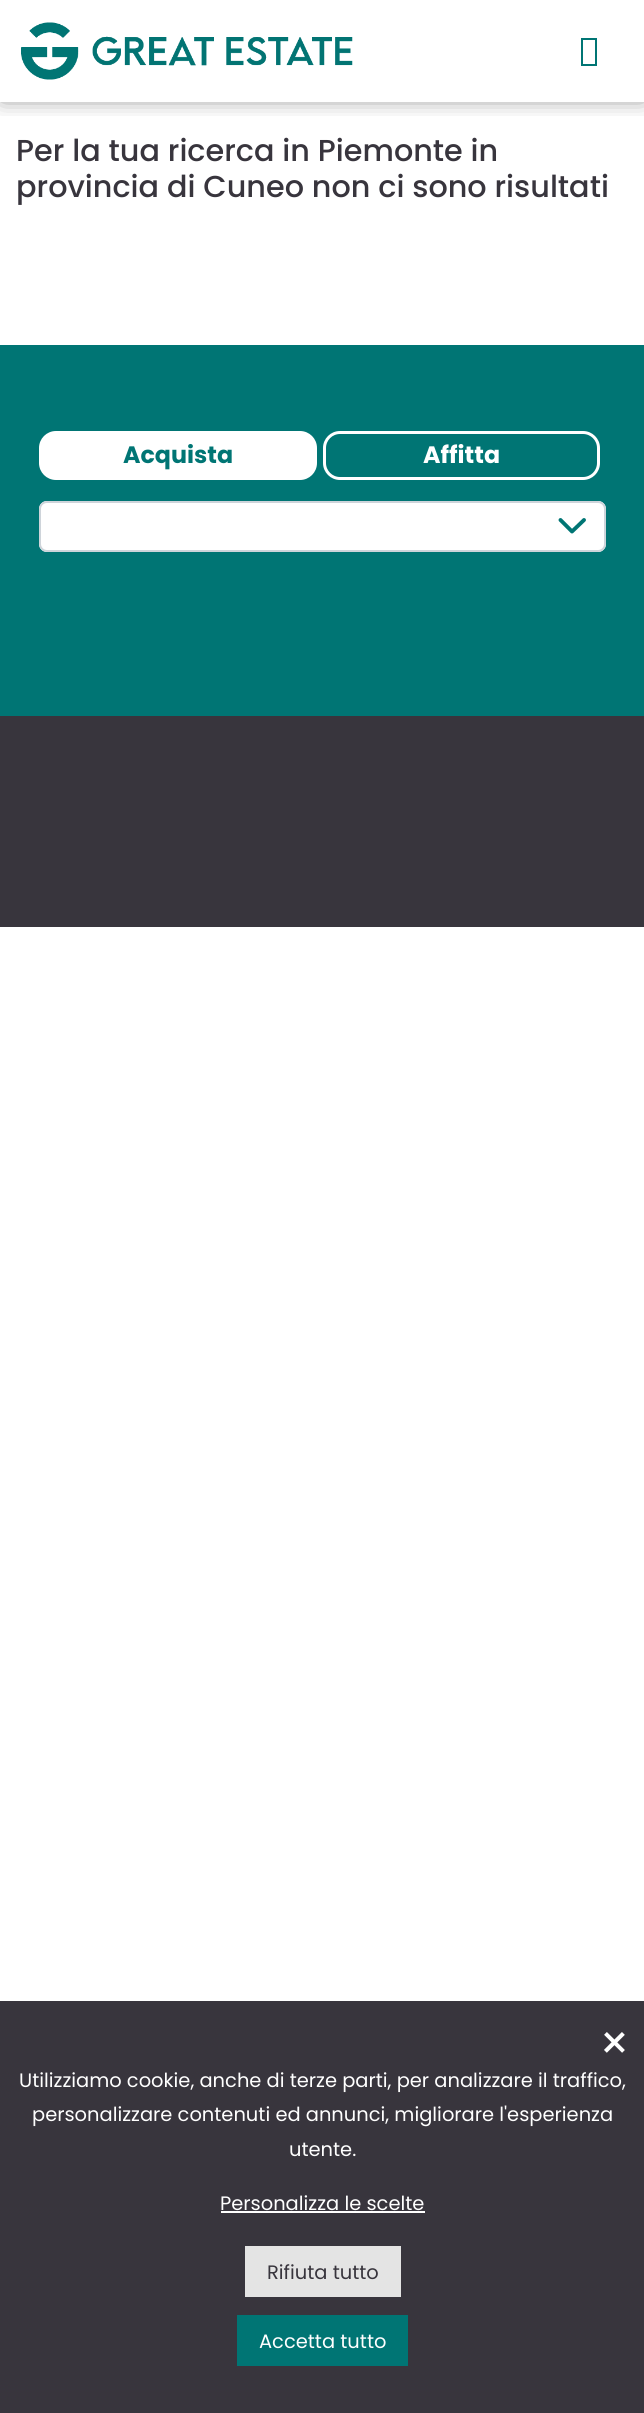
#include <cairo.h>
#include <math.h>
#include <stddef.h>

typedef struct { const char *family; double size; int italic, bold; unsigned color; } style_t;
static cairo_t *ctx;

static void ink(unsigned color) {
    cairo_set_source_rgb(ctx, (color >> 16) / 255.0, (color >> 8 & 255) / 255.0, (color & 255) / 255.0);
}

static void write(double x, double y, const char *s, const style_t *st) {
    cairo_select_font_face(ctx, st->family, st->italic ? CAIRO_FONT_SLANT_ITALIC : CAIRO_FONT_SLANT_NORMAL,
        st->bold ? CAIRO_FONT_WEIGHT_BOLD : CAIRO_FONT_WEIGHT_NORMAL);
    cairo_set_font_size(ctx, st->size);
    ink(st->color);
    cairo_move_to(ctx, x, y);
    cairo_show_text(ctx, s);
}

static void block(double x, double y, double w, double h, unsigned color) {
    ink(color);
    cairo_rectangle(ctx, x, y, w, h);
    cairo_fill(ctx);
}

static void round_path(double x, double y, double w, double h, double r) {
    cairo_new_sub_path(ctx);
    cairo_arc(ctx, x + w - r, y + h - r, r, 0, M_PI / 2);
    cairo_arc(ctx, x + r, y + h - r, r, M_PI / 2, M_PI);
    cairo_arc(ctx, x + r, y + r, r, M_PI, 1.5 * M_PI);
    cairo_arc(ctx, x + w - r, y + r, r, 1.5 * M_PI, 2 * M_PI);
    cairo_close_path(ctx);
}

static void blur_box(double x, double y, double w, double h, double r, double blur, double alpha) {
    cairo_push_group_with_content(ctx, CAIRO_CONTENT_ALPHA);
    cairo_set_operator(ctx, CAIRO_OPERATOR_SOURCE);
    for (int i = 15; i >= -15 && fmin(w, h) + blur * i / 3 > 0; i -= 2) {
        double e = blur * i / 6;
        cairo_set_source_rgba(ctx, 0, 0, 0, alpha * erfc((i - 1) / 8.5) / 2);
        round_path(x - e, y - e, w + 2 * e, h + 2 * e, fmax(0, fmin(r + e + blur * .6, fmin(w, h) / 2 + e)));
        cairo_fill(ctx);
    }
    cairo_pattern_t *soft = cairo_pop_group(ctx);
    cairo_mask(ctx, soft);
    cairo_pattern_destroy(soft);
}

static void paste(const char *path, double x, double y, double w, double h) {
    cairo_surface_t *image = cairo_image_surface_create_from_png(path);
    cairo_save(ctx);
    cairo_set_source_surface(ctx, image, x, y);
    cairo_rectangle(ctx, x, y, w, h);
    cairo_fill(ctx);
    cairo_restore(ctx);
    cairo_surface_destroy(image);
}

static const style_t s1 = {"Poppins Medium", 30.25, 0, 0, 0x38353d};
static const style_t s2 = {"Poppins", 23.75, 0, 1, 0x007574};
static const style_t s3 = {"Poppins", 23.75, 0, 1, 0xffffff};
static const style_t s4 = {"Poppins", 48, 0, 0, 0xffffff};
static const style_t s5 = {"Poppins", 19.45, 0, 0, 0xffffff};
static const style_t s6 = {"Poppins", 19.45, 0, 0, 0x38353d};

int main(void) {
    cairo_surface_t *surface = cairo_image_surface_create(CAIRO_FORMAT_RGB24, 644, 2413);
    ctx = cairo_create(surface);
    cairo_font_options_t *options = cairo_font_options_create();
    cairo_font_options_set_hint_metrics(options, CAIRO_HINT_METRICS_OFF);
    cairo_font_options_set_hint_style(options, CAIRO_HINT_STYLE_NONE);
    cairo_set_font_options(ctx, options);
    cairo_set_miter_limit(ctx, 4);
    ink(0xffffff);
    cairo_paint(ctx);
    cairo_save(ctx);
    cairo_rectangle(ctx, 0, 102, 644, 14);
    cairo_clip(ctx);
    ink(0x000000);
    blur_box(5, 87, 636, 8, 0, 12, 0.65);
    cairo_restore(ctx);
    block(0, 62, 644, 24, 0xffffff);
    paste("pic1.png", 21, 22, 332, 58);
    ink(0x007574);
    cairo_new_path(ctx);
    cairo_move_to(ctx, 581, 66);
    cairo_line_to(ctx, 581, 38);
    cairo_line_to(ctx, 597, 38);
    cairo_line_to(ctx, 597, 66);
    cairo_close_path(ctx);
    cairo_move_to(ctx, 583, 64);
    cairo_line_to(ctx, 595, 64);
    cairo_line_to(ctx, 595, 40);
    cairo_line_to(ctx, 583, 40);
    cairo_close_path(ctx);
    cairo_fill(ctx);
    write(16, 161, "Per la tua ricerca in Piemonte in", &s1);
    write(16, 197, "provincia di Cuneo non ci sono risultati", &s1);
    block(0, 345, 644, 371, 0x007574);
    ink(0xffffff);
    round_path(40.5, 432.5, 275, 46, 15.5);
    cairo_fill_preserve(ctx);
    cairo_set_line_width(ctx, 3);
    cairo_stroke(ctx);
    write(123, 463, "Acquista", &s2);
    round_path(324.5, 432.5, 274, 46, 15.5);
    ink(0xffffff);
    cairo_stroke(ctx);
    write(423, 463, "Affitta", &s3);
    round_path(39, 501, 567, 51, 8);
    cairo_fill(ctx);
    cairo_new_path(ctx);
    cairo_move_to(ctx, 560.5, 520);
    cairo_line_to(ctx, 572, 531.5);
    cairo_line_to(ctx, 584, 520);
    ink(0x007574);
    cairo_set_line_width(ctx, 3.9);
    cairo_set_line_cap(ctx, CAIRO_LINE_CAP_ROUND);
    cairo_set_line_join(ctx, CAIRO_LINE_JOIN_ROUND);
    cairo_stroke(ctx);
    round_path(40, 502, 565, 49, 7);
    ink(0xced4da);
    cairo_set_line_width(ctx, 2);
    cairo_set_line_cap(ctx, CAIRO_LINE_CAP_BUTT);
    cairo_set_line_join(ctx, CAIRO_LINE_JOIN_MITER);
    cairo_stroke(ctx);
    block(0, 716, 644, 211, 0x38353d);
    block(0, 2001, 644, 412, 0x38353d);
    write(599, 2060, "×", &s4);
    write(19, 2087, "Utilizziamo cookie, anche di terze parti, per analizzare il traffico,", &s5);
    write(32, 2121, "personalizzare contenuti ed annunci, migliorare l'esperienza", &s5);
    write(289, 2156, "utente.", &s5);
    write(220, 2210, "Personalizza le scelte", &s5);
    block(221, 2211, 204, 2, 0xffffff);
    block(245, 2246, 156, 51, 0xe4e4e4);
    write(267, 2279, "Rifiuta tutto", &s6);
    block(237, 2315, 171, 51, 0x007574);
    write(259, 2348, "Accetta tutto", &s5);
    cairo_surface_write_to_png(surface, "screenshot.png");
    cairo_font_options_destroy(options);
    cairo_destroy(ctx);
    cairo_surface_destroy(surface);
    return 0;
}
